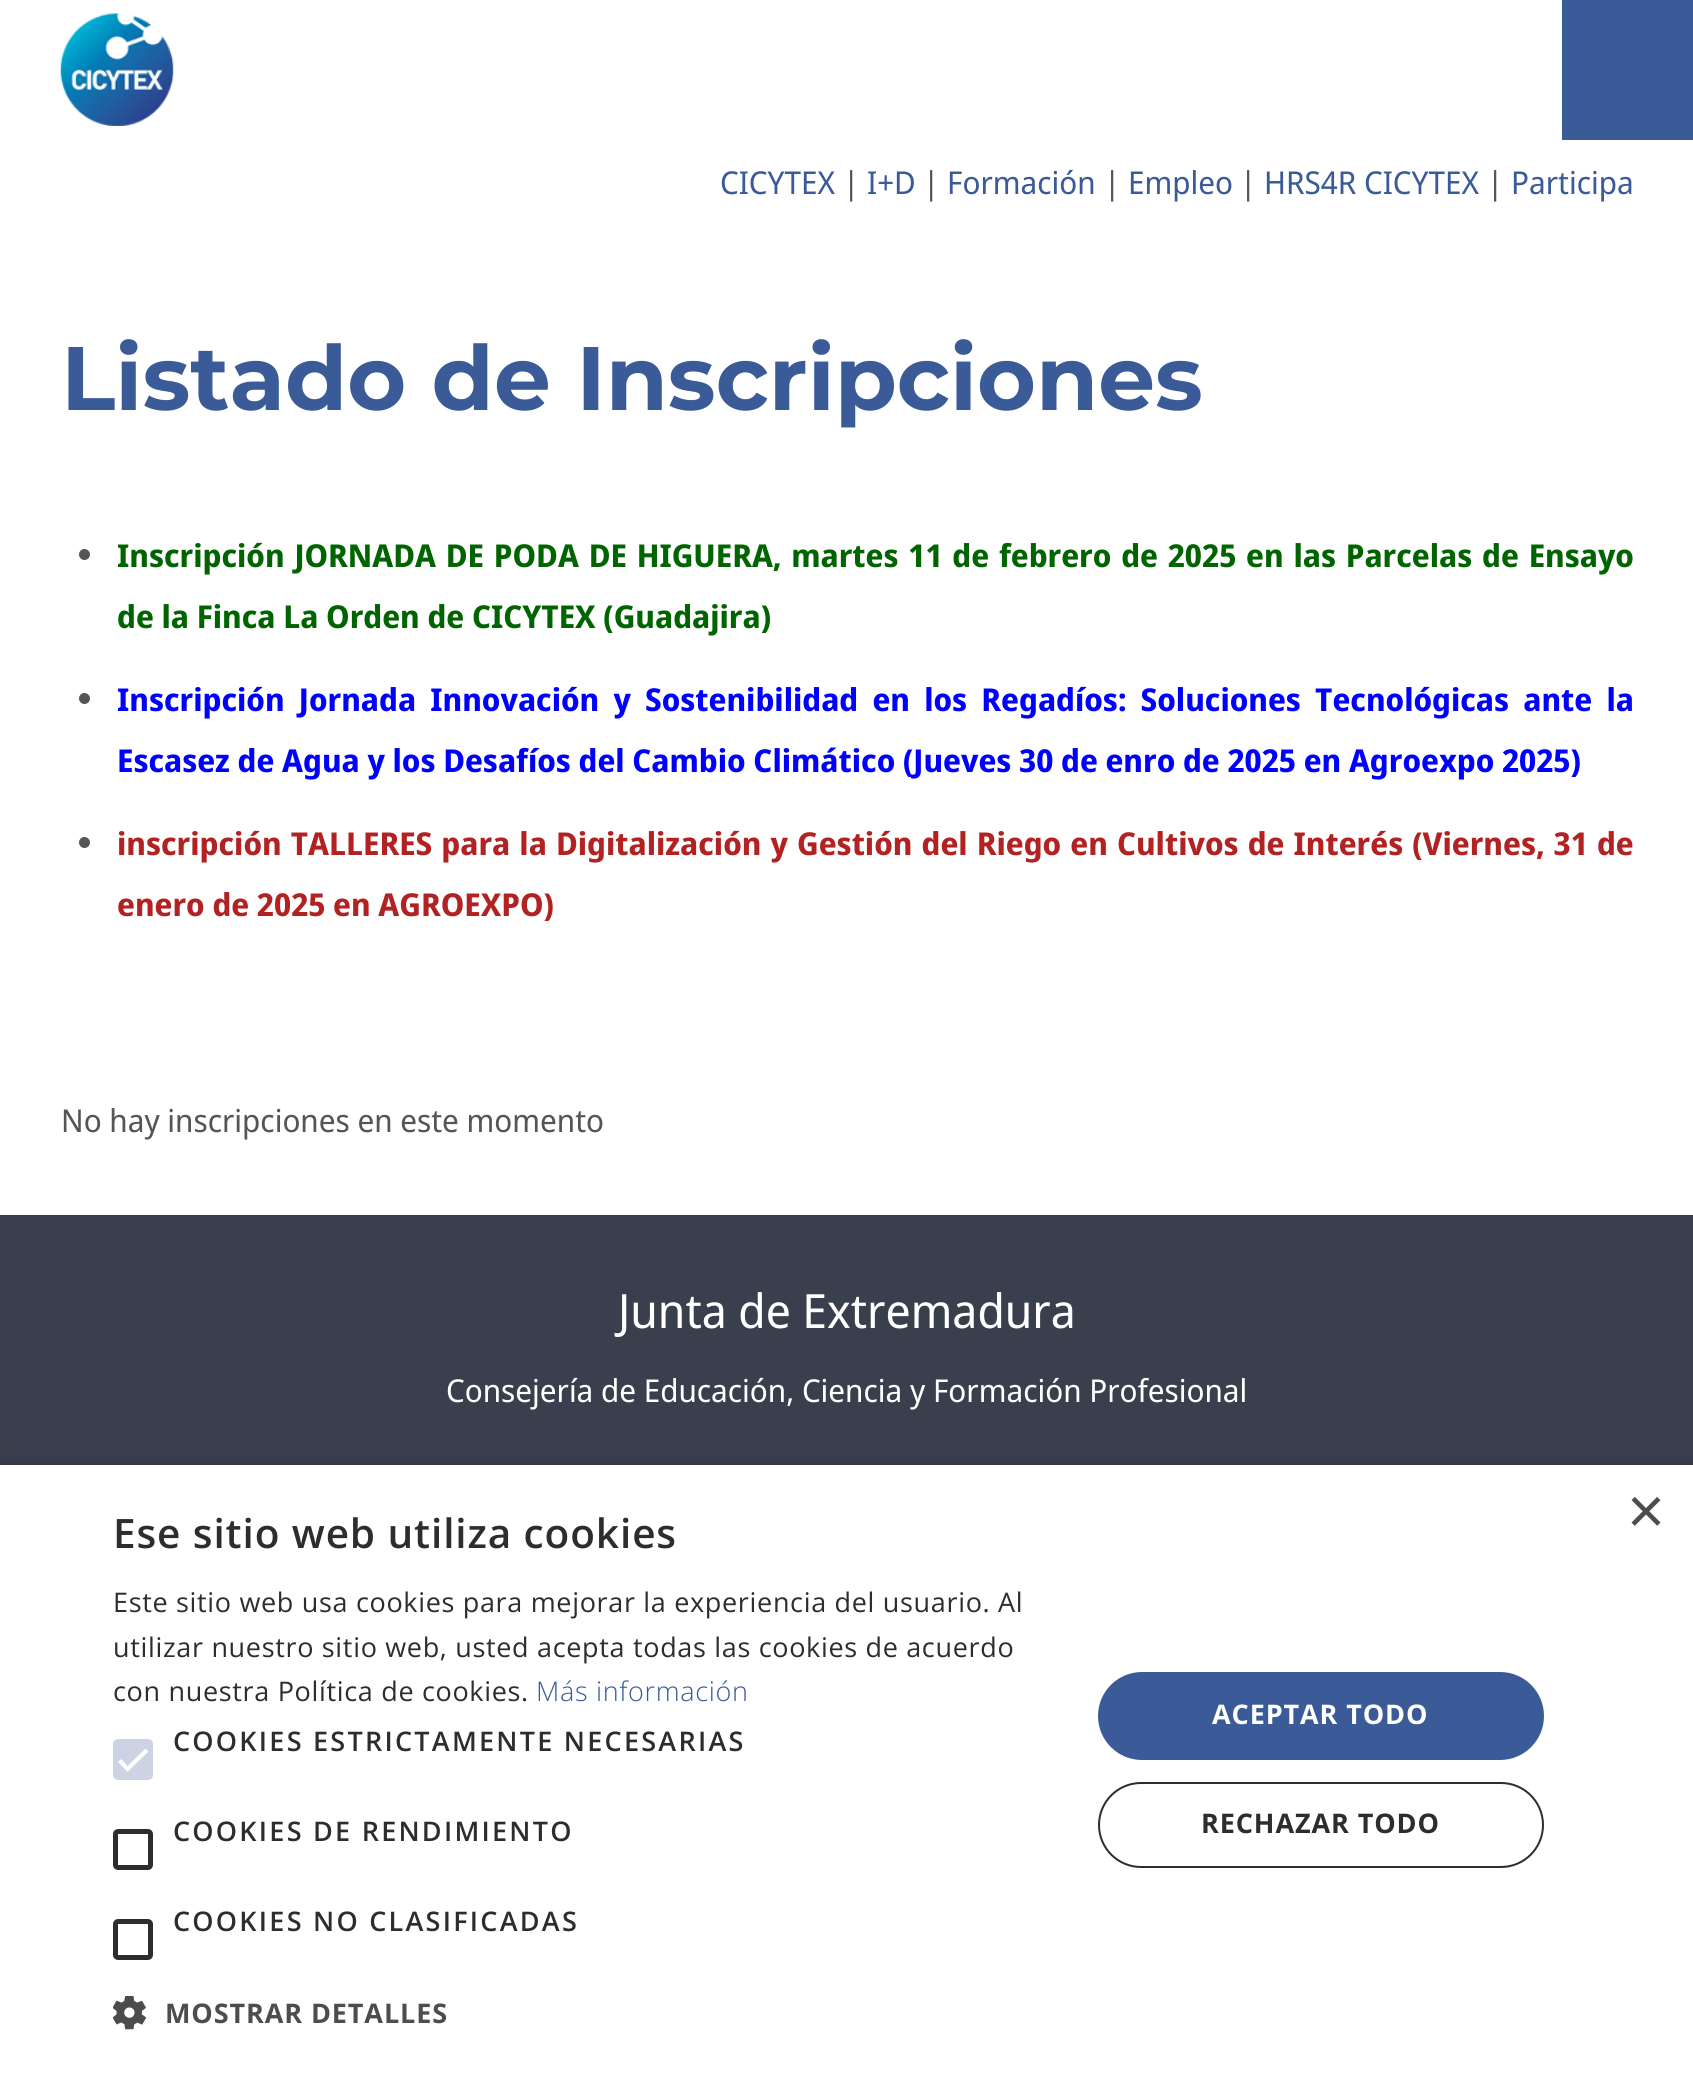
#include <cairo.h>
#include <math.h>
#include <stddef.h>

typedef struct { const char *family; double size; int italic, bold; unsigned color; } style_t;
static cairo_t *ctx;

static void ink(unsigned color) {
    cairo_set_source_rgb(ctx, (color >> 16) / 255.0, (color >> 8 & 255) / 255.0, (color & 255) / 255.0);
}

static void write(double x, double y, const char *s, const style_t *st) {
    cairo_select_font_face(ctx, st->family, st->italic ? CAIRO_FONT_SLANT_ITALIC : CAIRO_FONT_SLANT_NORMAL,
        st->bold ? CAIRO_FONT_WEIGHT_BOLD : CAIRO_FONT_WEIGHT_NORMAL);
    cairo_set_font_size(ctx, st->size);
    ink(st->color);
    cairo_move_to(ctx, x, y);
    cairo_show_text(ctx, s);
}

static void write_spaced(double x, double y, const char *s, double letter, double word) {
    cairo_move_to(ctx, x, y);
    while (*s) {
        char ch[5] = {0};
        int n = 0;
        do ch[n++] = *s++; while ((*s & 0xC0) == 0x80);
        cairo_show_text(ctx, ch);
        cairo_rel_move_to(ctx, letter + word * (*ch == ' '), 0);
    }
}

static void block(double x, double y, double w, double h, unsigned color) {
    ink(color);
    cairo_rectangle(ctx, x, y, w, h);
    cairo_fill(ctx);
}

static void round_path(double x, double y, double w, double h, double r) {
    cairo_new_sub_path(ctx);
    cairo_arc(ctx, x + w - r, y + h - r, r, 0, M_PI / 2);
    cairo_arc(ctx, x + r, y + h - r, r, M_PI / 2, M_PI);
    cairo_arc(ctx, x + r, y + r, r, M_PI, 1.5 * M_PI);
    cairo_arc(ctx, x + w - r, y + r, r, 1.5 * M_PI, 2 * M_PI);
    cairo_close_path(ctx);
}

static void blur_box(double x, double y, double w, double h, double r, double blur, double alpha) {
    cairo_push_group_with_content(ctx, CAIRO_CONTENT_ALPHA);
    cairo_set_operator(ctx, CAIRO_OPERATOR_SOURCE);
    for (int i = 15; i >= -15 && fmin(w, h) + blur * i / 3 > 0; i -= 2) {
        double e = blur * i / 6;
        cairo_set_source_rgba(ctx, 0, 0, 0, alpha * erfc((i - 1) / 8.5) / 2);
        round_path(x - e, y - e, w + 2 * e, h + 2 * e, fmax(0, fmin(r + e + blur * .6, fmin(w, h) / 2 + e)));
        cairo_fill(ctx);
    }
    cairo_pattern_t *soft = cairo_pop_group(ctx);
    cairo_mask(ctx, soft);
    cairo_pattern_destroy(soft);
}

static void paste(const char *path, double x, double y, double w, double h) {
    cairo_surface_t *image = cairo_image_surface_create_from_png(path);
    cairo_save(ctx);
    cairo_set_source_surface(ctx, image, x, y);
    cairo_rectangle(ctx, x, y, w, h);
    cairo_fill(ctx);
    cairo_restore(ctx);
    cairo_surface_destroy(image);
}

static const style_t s1 = {"Noto Sans Display", 31.5, 0, 0, 0x3a5a98};
static const style_t s2 = {"Noto Sans Display", 31.5, 0, 0, 0x555555};
static const style_t s3 = {"Montserrat Thin", 90, 0, 0, 0x3a5a98};
static const style_t s4 = {"Noto Sans Display", 31.5, 0, 1, 0x006400};
static const style_t s5 = {"Noto Sans Display", 31.5, 0, 1, 0x0000ff};
static const style_t s6 = {"Noto Sans Display", 31.5, 0, 1, 0xb22222};
static const style_t s7 = {"Noto Sans Display", 47.25, 0, 0, 0xffffff};
static const style_t s8 = {"Noto Sans Display", 31.5, 0, 0, 0xffffff};
static const style_t s9 = {"Liberation Sans", 65, 0, 0, 0x4d4d4d};

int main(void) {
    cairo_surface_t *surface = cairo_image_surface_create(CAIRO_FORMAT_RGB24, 1693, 2073);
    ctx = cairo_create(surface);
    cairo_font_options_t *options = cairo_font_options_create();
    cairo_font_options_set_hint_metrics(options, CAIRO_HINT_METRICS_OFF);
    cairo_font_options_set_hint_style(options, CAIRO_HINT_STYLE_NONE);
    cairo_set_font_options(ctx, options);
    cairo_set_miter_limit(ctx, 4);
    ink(0xffffff);
    cairo_paint(ctx);
    block(1562, 0, 131, 140, 0x3a5a98);
    paste("pic1.png", 60, 13, 114, 113);
    write(720, 194, "CICYTEX", &s1);
    write(843, 194, "|", &s2);
    write(867, 194, "I+D", &s1);
    write(923, 194, "|", &s2);
    write(947, 194, "Formación", &s1);
    write(1104, 194, "|", &s2);
    write(1128, 194, "Empleo", &s1);
    write(1240, 194, "|", &s2);
    write(1264, 194, "HRS4R CICYTEX", &s1);
    write(1487, 194, "|", &s2);
    write(1511, 194, "Participa", &s1);
    write(61, 410, "Listado de Inscripciones", &s3);
    ink(0x555555);
    cairo_new_path(ctx);
    cairo_arc(ctx, 84.5, 554.5, 5.5, 0, 2 * M_PI);
    cairo_fill(ctx);
    cairo_select_font_face(ctx, "Noto Sans Display", CAIRO_FONT_SLANT_NORMAL, CAIRO_FONT_WEIGHT_BOLD);
    cairo_set_font_size(ctx, 31.5);
    ink(0x006400);
    write_spaced(117, 567, "Inscripción JORNADA DE PODA DE HIGUERA, martes 11 de febrero de 2025 en las Parcelas de Ensayo", 0, 2.1);
    write(117, 628, "de la Finca La Orden de CICYTEX (Guadajira)", &s4);
    ink(0x555555);
    cairo_new_path(ctx);
    cairo_arc(ctx, 84.5, 698.5, 5.5, 0, 2 * M_PI);
    cairo_fill(ctx);
    ink(0x0000ff);
    write_spaced(117, 711, "Inscripción Jornada Innovación y Sostenibilidad en los Regadíos: Soluciones Tecnológicas ante la", 0, 6.5);
    write(117, 772, "Escasez de Agua y los Desafíos del Cambio Climático (Jueves 30 de enro de 2025 en Agroexpo 2025)", &s5);
    ink(0x555555);
    cairo_new_path(ctx);
    cairo_arc(ctx, 84.5, 842.5, 5.5, 0, 2 * M_PI);
    cairo_fill(ctx);
    ink(0xb22222);
    write_spaced(117, 855, "inscripción TALLERES para la Digitalización y Gestión del Riego en Cultivos de Interés (Viernes, 31 de", 0, 1.4);
    write(117, 916, "enero de 2025 en AGROEXPO)", &s6);
    write(61, 1132, "No hay inscripciones en este momento", &s2);
    block(0, 1215, 1693, 250, 0x393f4c);
    write(618, 1328, "Junta de Extremadura", &s7);
    write(446, 1402, "Consejería de Educación, Ciencia y Formación Profesional", &s8);
    ink(0x000000);
    blur_box(2, 1469, 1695, 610, 0, 9, 0.35);
    block(0, 1465, 1693, 608, 0xffffff);
    write(1627, 1533, "×", &s9);
    cairo_select_font_face(ctx, "Open Sans SemiBold", CAIRO_FONT_SLANT_NORMAL, CAIRO_FONT_WEIGHT_NORMAL);
    cairo_set_font_size(ctx, 40.5);
    ink(0x2d2d2d);
    write_spaced(113, 1548, "Ese sitio web utiliza cookies", 0.9, 0);
    cairo_select_font_face(ctx, "Open Sans", CAIRO_FONT_SLANT_NORMAL, CAIRO_FONT_WEIGHT_NORMAL);
    cairo_set_font_size(ctx, 27);
    write_spaced(113, 1612, "Este sitio web usa cookies para mejorar la experiencia del usuario. Al", 0.67, 0);
    write_spaced(113, 1657, "utilizar nuestro sitio web, usted acepta todas las cookies de acuerdo", 0.67, 0);
    write_spaced(113, 1701, "con nuestra Política de cookies.", 0.67, 0);
    cairo_select_font_face(ctx, "Open Sans Light", CAIRO_FONT_SLANT_NORMAL, CAIRO_FONT_WEIGHT_NORMAL);
    ink(0x3a5a98);
    write_spaced(536, 1701, "Más información", 0.67, 0);
    ink(0xccd4e4);
    round_path(113, 1739, 40, 41, 5);
    cairo_fill(ctx);
    cairo_new_path(ctx);
    cairo_move_to(ctx, 119.5, 1760.5);
    cairo_line_to(ctx, 127.5, 1769);
    cairo_line_to(ctx, 147, 1750);
    ink(0xffffff);
    cairo_set_line_width(ctx, 4.1);
    cairo_stroke(ctx);
    cairo_select_font_face(ctx, "Open Sans SemiBold", CAIRO_FONT_SLANT_NORMAL, CAIRO_FONT_WEIGHT_NORMAL);
    ink(0x2d2d2d);
    write_spaced(173, 1751, "COOKIES ESTRICTAMENTE NECESARIAS", 2.25, 0);
    round_path(115.5, 1831.5, 35, 36, 2.5);
    cairo_set_line_width(ctx, 5);
    cairo_stroke(ctx);
    write_spaced(173, 1841, "COOKIES DE RENDIMIENTO", 2.25, 0);
    round_path(115.5, 1921.5, 35, 36, 2.5);
    cairo_stroke(ctx);
    write_spaced(173, 1931, "COOKIES NO CLASIFICADAS", 2.25, 0);
    paste("pic2.png", 113, 1996, 33, 34);
    cairo_select_font_face(ctx, "Open Sans", CAIRO_FONT_SLANT_NORMAL, CAIRO_FONT_WEIGHT_BOLD);
    ink(0x4d4d4d);
    write_spaced(165, 2023, "MOSTRAR DETALLES", 0.9, 0);
    ink(0x3a5a98);
    round_path(1098, 1672, 446, 88, 44);
    cairo_fill(ctx);
    ink(0xffffff);
    write_spaced(1212, 1724, "ACEPTAR TODO", 0.9, 0);
    round_path(1099, 1783, 444, 84, 42);
    ink(0x2d2d2d);
    cairo_set_line_width(ctx, 2);
    cairo_stroke(ctx);
    write_spaced(1201, 1833, "RECHAZAR TODO", 0.9, 0);
    cairo_surface_write_to_png(surface, "screenshot.png");
    cairo_font_options_destroy(options);
    cairo_destroy(ctx);
    cairo_surface_destroy(surface);
    return 0;
}
